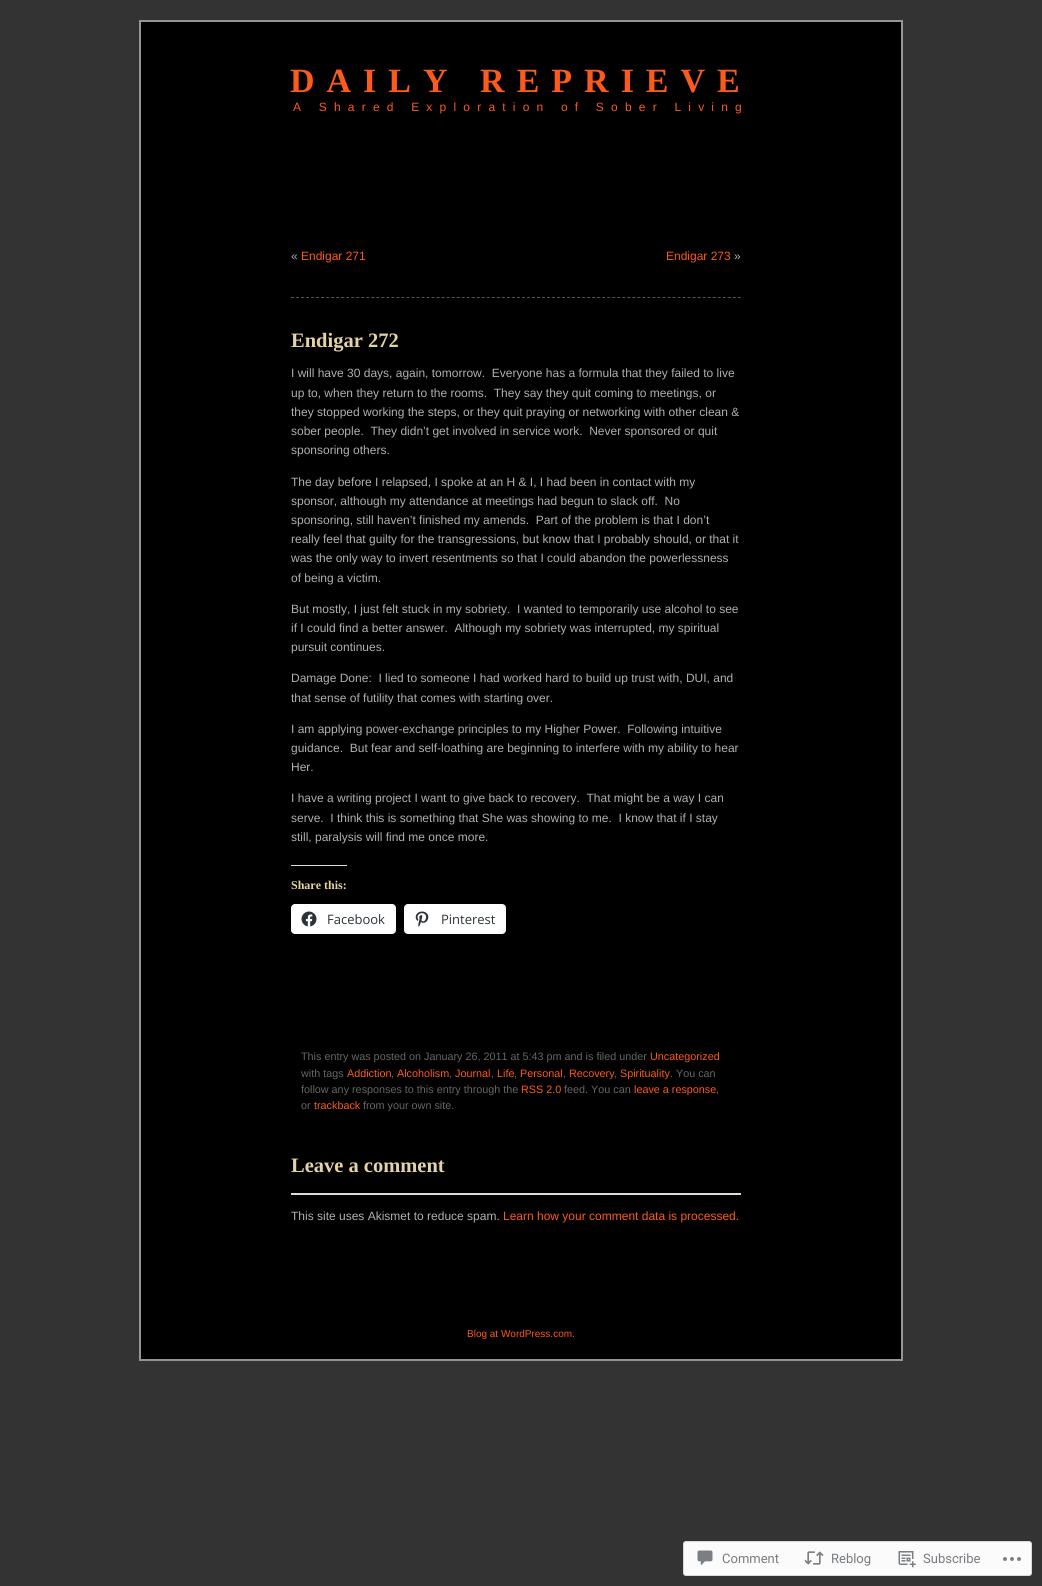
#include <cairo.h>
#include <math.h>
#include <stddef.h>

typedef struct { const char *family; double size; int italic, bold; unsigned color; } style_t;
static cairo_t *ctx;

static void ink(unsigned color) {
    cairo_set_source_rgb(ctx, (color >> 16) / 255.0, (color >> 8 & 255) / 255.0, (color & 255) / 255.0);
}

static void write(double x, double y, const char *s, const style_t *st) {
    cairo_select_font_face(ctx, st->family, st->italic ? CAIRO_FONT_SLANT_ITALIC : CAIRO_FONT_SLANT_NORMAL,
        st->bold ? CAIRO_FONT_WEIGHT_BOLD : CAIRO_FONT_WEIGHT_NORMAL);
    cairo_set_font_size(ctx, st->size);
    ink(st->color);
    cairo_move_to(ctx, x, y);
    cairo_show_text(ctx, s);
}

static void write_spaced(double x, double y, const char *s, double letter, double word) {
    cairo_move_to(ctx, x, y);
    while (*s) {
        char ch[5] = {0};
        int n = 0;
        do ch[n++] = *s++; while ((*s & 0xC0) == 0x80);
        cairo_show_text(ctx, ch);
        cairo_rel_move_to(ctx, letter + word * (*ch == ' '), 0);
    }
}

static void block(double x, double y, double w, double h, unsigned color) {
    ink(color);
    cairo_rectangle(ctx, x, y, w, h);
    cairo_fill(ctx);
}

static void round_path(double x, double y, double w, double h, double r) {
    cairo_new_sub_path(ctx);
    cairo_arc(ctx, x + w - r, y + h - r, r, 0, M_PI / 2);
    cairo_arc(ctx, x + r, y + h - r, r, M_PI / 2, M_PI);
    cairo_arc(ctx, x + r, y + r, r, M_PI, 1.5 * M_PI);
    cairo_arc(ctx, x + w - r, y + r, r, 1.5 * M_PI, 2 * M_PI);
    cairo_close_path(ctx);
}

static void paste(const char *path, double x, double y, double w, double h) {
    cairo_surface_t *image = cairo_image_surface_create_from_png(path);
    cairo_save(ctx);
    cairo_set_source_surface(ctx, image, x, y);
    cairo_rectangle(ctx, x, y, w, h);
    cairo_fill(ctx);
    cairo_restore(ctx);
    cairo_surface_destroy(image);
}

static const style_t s1 = {"Liberation Sans", 12, 0, 0, 0xb0b0b0};
static const style_t s2 = {"Liberation Sans", 12, 0, 0, 0xfd5a1e};
static const style_t s3 = {"Liberation Serif", 20.5, 0, 1, 0xe4d3a6};
static const style_t s4 = {"Liberation Serif", 12, 0, 1, 0xe4d3a6};
static const style_t s5 = {"Open Sans", 13, 0, 0, 0x2c3338};
static const style_t s6 = {"Liberation Sans", 10.8, 0, 0, 0x666666};
static const style_t s7 = {"Liberation Sans", 10.8, 0, 0, 0xfd5a1e};
static const style_t s8 = {"Liberation Sans", 10, 0, 0, 0xfd5a1e};
static const style_t s9 = {"Roboto", 13, 0, 0, 0x777b80};

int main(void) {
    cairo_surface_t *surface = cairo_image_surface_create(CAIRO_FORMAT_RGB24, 1042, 1586);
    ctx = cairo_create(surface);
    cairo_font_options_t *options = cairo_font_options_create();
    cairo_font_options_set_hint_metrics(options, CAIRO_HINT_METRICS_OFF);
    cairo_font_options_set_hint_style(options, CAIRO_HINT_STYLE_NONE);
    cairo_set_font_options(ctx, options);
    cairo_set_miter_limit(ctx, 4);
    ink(0x333333);
    cairo_paint(ctx);
    ink(0x000000);
    cairo_rectangle(ctx, 140, 21, 762, 1339);
    cairo_fill_preserve(ctx);
    ink(0x959596);
    cairo_stroke(ctx);
    cairo_select_font_face(ctx, "Liberation Serif", CAIRO_FONT_SLANT_NORMAL, CAIRO_FONT_WEIGHT_BOLD);
    cairo_set_font_size(ctx, 34);
    ink(0xfd5a1e);
    write_spaced(290, 92, "DAILY REPRIEVE", 12, 0);
    cairo_select_font_face(ctx, "Liberation Sans", CAIRO_FONT_SLANT_NORMAL, CAIRO_FONT_WEIGHT_NORMAL);
    cairo_set_font_size(ctx, 12);
    write_spaced(293, 111, "A Shared Exploration of Sober Living", 7.2, 0);
    write(291, 260, "«", &s1);
    write(301, 260, "Endigar 271", &s2);
    write(666, 260, "Endigar 273", &s2);
    write(734, 260, "»", &s1);
    cairo_new_path(ctx);
    cairo_move_to(ctx, 291, 297.5);
    cairo_line_to(ctx, 741, 297.5);
    ink(0x555555);
    cairo_set_line_width(ctx, 1);
    cairo_set_dash(ctx, (double[]){3, 2.02}, 2, 0);
    cairo_stroke(ctx);
    write(291, 347, "Endigar 272", &s3);
    write(291, 377, "I will have 30 days, again, tomorrow.  Everyone has a formula that they failed to live", &s1);
    write(291, 397, "up to, when they return to the rooms.  They say they quit coming to meetings, or", &s1);
    write(291, 416, "they stopped working the steps, or they quit praying or networking with other clean &", &s1);
    write(291, 435, "sober people.  They didn’t get involved in service work.  Never sponsored or quit", &s1);
    write(291, 454, "sponsoring others.", &s1);
    write(291, 486, "The day before I relapsed, I spoke at an H & I, I had been in contact with my", &s1);
    write(291, 505, "sponsor, although my attendance at meetings had begun to slack off.  No", &s1);
    write(291, 524, "sponsoring, still haven’t finished my amends.  Part of the problem is that I don’t", &s1);
    write(291, 543, "really feel that guilty for the transgressions, but know that I probably should, or that it", &s1);
    write(291, 562, "was the only way to invert resentments so that I could abandon the powerlessness", &s1);
    write(291, 582, "of being a victim.", &s1);
    write(291, 613, "But mostly, I just felt stuck in my sobriety.  I wanted to temporarily use alcohol to see", &s1);
    write(291, 632, "if I could find a better answer.  Although my sobriety was interrupted, my spiritual", &s1);
    write(291, 651, "pursuit continues.", &s1);
    write(291, 682, "Damage Done:  I lied to someone I had worked hard to build up trust with, DUI, and", &s1);
    write(291, 702, "that sense of futility that comes with starting over.", &s1);
    write(291, 733, "I am applying power-exchange principles to my Higher Power.  Following intuitive", &s1);
    write(291, 752, "guidance.  But fear and self-loathing are beginning to interfere with my ability to hear", &s1);
    write(291, 771, "Her.", &s1);
    write(291, 802, "I have a writing project I want to give back to recovery.  That might be a way I can", &s1);
    write(291, 822, "serve.  I think this is something that She was showing to me.  I know that if I stay", &s1);
    write(291, 841, "still, paralysis will find me once more.", &s1);
    block(291, 865, 56, 1, 0xdcdcde);
    write(291, 889, "Share this:", &s4);
    ink(0xffffff);
    round_path(291, 904, 105, 30, 4);
    cairo_fill(ctx);
    paste("pic1.png", 301, 911, 16, 16);
    write(327, 924, "Facebook", &s5);
    ink(0xffffff);
    round_path(404, 904, 102, 30, 4);
    cairo_fill(ctx);
    paste("pic2.png", 415, 911, 14, 16);
    write(441, 924, "Pinterest", &s5);
    write(301, 1060, "This entry was posted on January 26, 2011 at 5:43 pm and is filed under", &s6);
    write(650, 1060, "Uncategorized", &s7);
    write(301, 1077, "with tags", &s6);
    write(347, 1077, "Addiction", &s7);
    write(391, 1077, ",", &s6);
    write(397, 1077, "Alcoholism", &s7);
    write(449, 1077, ",", &s6);
    write(455, 1077, "Journal", &s7);
    write(491, 1077, ",", &s6);
    write(497, 1077, "Life", &s7);
    write(514, 1077, ",", &s6);
    write(520, 1077, "Personal", &s7);
    write(563, 1077, ",", &s6);
    write(569, 1077, "Recovery", &s7);
    write(614, 1077, ",", &s6);
    write(620, 1077, "Spirituality", &s7);
    write(670, 1077, ". You can", &s6);
    write(301, 1093, "follow any responses to this entry through the", &s6);
    write(521, 1093, "RSS 2.0", &s7);
    write(564, 1093, "feed. You can", &s6);
    write(634, 1093, "leave a response", &s7);
    write(716, 1093, ",", &s6);
    write(301, 1109, "or", &s6);
    write(314, 1109, "trackback", &s7);
    write(363, 1109, "from your own site.", &s6);
    write(291, 1172, "Leave a comment", &s3);
    block(291, 1193, 450, 2, 0xdcdcde);
    write(291, 1220, "This site uses Akismet to reduce spam.", &s1);
    write(503, 1220, "Learn how your comment data is processed.", &s2);
    write(467, 1337, "Blog at WordPress.com.", &s8);
    ink(0xfbfbfb);
    round_path(683.5, 1541.5, 348, 34, 2.5);
    cairo_fill_preserve(ctx);
    ink(0xd9d9db);
    cairo_set_dash(ctx, NULL, 0, 0);
    cairo_stroke(ctx);
    paste("pic3.png", 697, 1550, 16, 16);
    write(722, 1563, "Comment", &s9);
    paste("pic4.png", 804, 1551, 20, 14);
    write(831, 1563, "Reblog", &s9);
    paste("pic5.png", 898, 1551, 18, 17);
    write(923, 1563, "Subscribe", &s9);
    paste("pic6.png", 1003, 1557, 18, 4);
    cairo_surface_write_to_png(surface, "screenshot.png");
    cairo_font_options_destroy(options);
    cairo_destroy(ctx);
    cairo_surface_destroy(surface);
    return 0;
}
